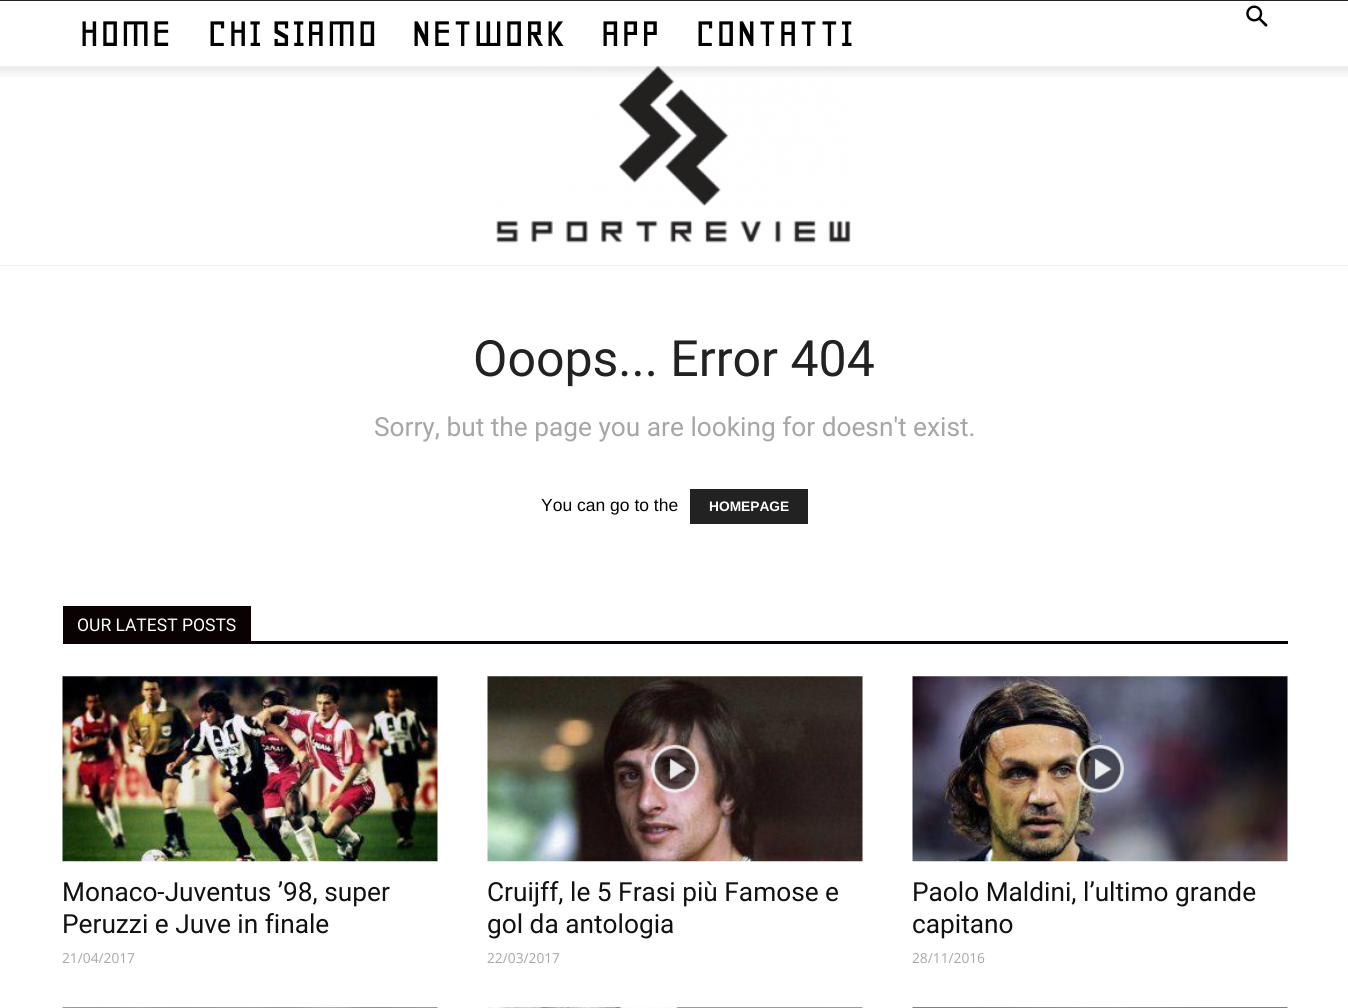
#include <cairo.h>
#include <math.h>
#include <stddef.h>

typedef struct { const char *family; double size; int italic, bold; unsigned color; } style_t;
static cairo_t *ctx;

static void ink(unsigned color) {
    cairo_set_source_rgb(ctx, (color >> 16) / 255.0, (color >> 8 & 255) / 255.0, (color & 255) / 255.0);
}

static void write(double x, double y, const char *s, const style_t *st) {
    cairo_select_font_face(ctx, st->family, st->italic ? CAIRO_FONT_SLANT_ITALIC : CAIRO_FONT_SLANT_NORMAL,
        st->bold ? CAIRO_FONT_WEIGHT_BOLD : CAIRO_FONT_WEIGHT_NORMAL);
    cairo_set_font_size(ctx, st->size);
    ink(st->color);
    cairo_move_to(ctx, x, y);
    cairo_show_text(ctx, s);
}

static void block(double x, double y, double w, double h, unsigned color) {
    ink(color);
    cairo_rectangle(ctx, x, y, w, h);
    cairo_fill(ctx);
}

static void paste(const char *path, double x, double y, double w, double h) {
    cairo_surface_t *image = cairo_image_surface_create_from_png(path);
    cairo_save(ctx);
    cairo_set_source_surface(ctx, image, x, y);
    cairo_rectangle(ctx, x, y, w, h);
    cairo_fill(ctx);
    cairo_restore(ctx);
    cairo_surface_destroy(image);
}

static const style_t s1 = {"Geo", 44, 0, 0, 0x000000};
static const style_t s2 = {"Roboto", 50, 0, 0, 0x222222};
static const style_t s3 = {"Roboto", 26.25, 0, 0, 0xa6a6a6};
static const style_t s4 = {"Liberation Sans", 17.5, 0, 0, 0x000000};
static const style_t s5 = {"Liberation Sans", 13.75, 0, 1, 0xffffff};
static const style_t s6 = {"Roboto", 17.5, 0, 0, 0xffffff};
static const style_t s7 = {"Roboto", 26.25, 0, 0, 0x111111};
static const style_t s8 = {"Open Sans", 13.75, 0, 0, 0xa6a6a6};

int main(void) {
    cairo_surface_t *surface = cairo_image_surface_create(CAIRO_FORMAT_RGB24, 1348, 1008);
    ctx = cairo_create(surface);
    cairo_font_options_t *options = cairo_font_options_create();
    cairo_font_options_set_hint_metrics(options, CAIRO_HINT_METRICS_OFF);
    cairo_font_options_set_hint_style(options, CAIRO_HINT_STYLE_NONE);
    cairo_set_font_options(ctx, options);
    cairo_set_miter_limit(ctx, 4);
    ink(0xffffff);
    cairo_paint(ctx);
    block(0, 0, 1348, 1, 0x222222);
    paste("pic1.png", 1246, 5, 22, 22);
    write(79, 46, "HOME", &s1);
    write(207, 46, "CHI SIAMO", &s1);
    write(411, 46, "NETWORK", &s1);
    write(600, 46, "APP", &s1);
    write(695, 46, "CONTATTI", &s1);
    paste("pic3.png", 496, 66, 355, 177);
    paste("pic2.png", 0, 66, 1348, 11);
    block(0, 265, 1348, 1, 0xeeeeee);
    write(473, 376, "Ooops... Error 404", &s2);
    write(374, 436, "Sorry, but the page you are looking for doesn't exist.", &s3);
    write(541, 511, "You can go to the", &s4);
    block(690, 489, 118, 35, 0x222222);
    write(709, 511, "HOMEPAGE", &s5);
    block(63, 641, 1225, 3, 0x0a0202);
    block(63, 606, 188, 35, 0x0a0202);
    write(77, 631, "OUR LATEST POSTS", &s6);
    paste("pic4.png", 62, 676, 376, 186);
    write(62, 901, "Monaco-Juventus ’98, super", &s7);
    write(62, 933, "Peruzzi e Juve in finale", &s7);
    write(62, 963, "21/04/2017", &s8);
    paste("pic5.png", 487, 676, 376, 186);
    paste("pic6.png", 651, 744, 48, 49);
    write(487, 901, "Cruijff, le 5 Frasi più Famose e", &s7);
    write(487, 933, "gol da antologia", &s7);
    write(487, 963, "22/03/2017", &s8);
    paste("pic7.png", 912, 676, 376, 186);
    paste("pic8.png", 1076, 744, 48, 49);
    write(912, 901, "Paolo Maldini, l’ultimo grande", &s7);
    write(912, 933, "capitano", &s7);
    write(912, 963, "28/11/2016", &s8);
    paste("pic9.png", 62, 1007, 376, 1);
    paste("pic10.png", 487, 1007, 376, 1);
    paste("pic11.png", 912, 1007, 376, 1);
    cairo_surface_write_to_png(surface, "screenshot.png");
    cairo_font_options_destroy(options);
    cairo_destroy(ctx);
    cairo_surface_destroy(surface);
    return 0;
}
